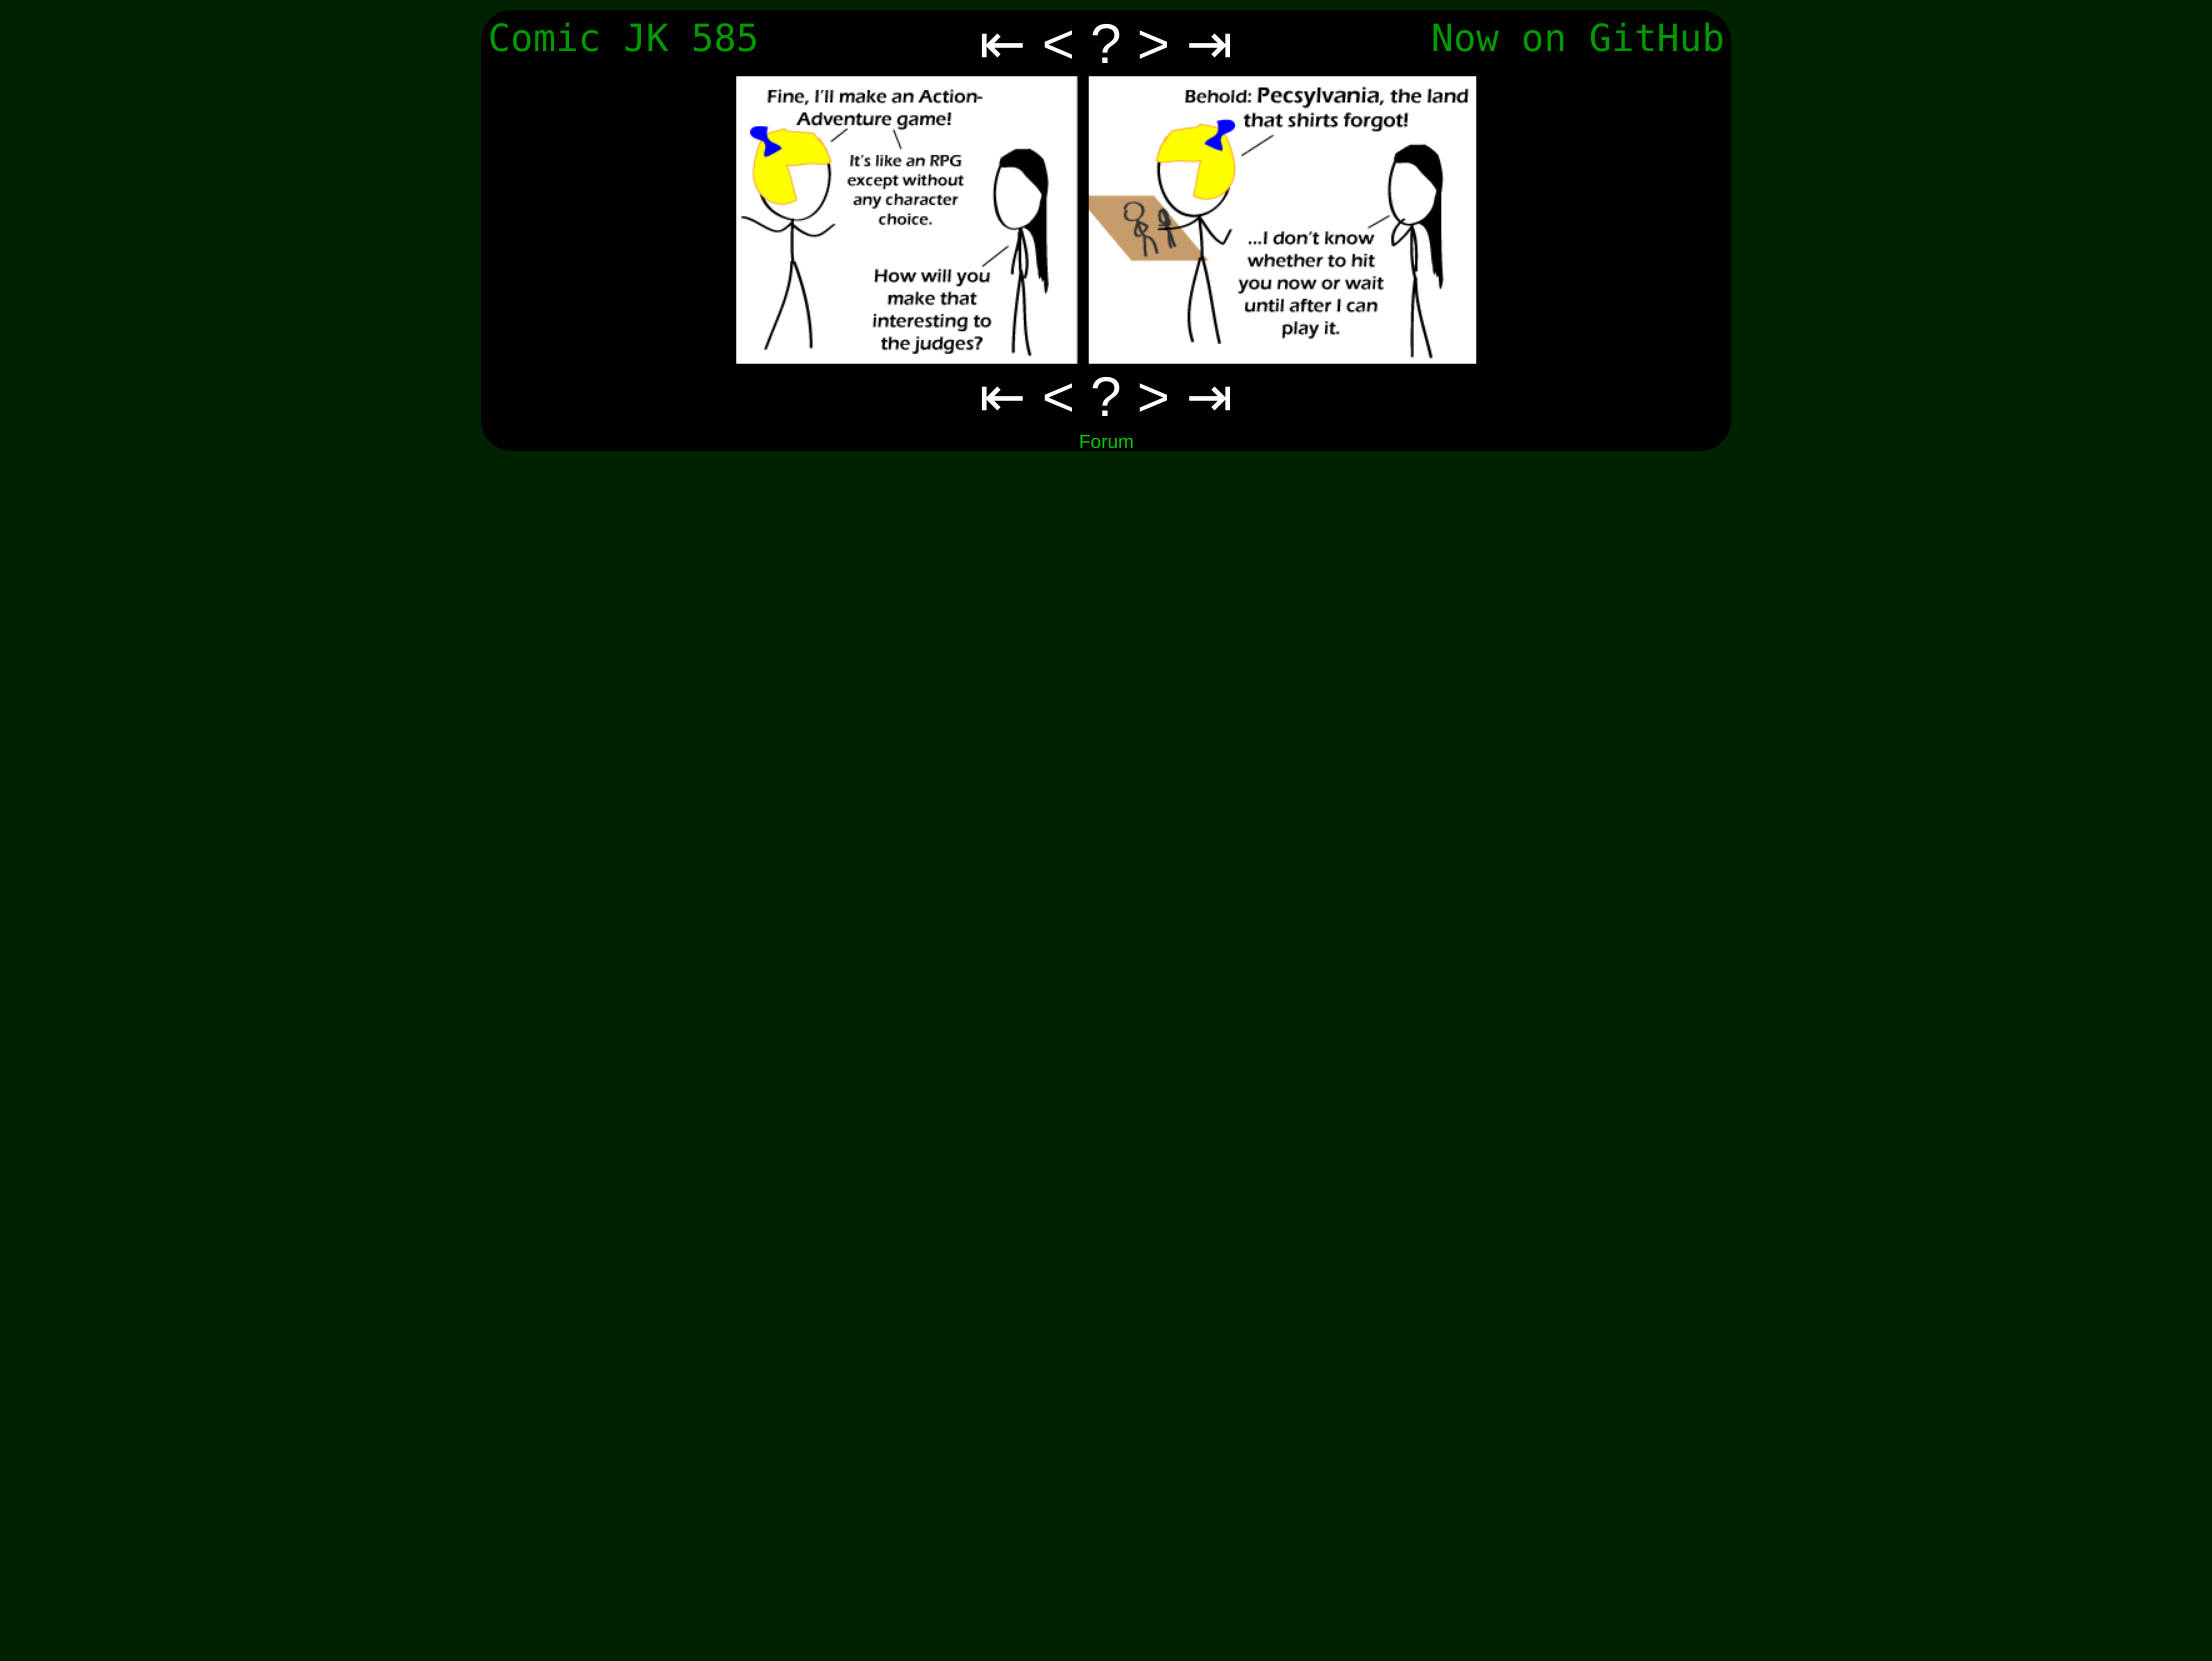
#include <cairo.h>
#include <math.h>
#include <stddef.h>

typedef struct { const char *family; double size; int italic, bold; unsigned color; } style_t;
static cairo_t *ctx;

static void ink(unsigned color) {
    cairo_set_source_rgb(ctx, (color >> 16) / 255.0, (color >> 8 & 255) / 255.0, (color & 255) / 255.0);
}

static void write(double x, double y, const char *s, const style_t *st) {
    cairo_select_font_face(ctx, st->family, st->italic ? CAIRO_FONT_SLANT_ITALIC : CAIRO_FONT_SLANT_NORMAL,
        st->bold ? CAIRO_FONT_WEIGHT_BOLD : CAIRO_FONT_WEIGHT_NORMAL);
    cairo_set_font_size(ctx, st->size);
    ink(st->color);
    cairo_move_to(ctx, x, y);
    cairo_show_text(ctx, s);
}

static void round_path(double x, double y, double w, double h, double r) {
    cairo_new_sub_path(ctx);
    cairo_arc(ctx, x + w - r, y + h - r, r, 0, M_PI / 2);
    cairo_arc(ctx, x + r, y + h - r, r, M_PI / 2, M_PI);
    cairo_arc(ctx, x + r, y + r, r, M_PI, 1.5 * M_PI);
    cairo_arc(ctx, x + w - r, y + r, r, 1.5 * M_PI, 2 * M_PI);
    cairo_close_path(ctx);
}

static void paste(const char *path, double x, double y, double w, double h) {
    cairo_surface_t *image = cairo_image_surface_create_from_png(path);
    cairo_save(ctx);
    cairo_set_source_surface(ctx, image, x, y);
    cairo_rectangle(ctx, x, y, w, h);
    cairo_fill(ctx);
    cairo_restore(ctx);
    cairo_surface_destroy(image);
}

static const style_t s1 = {"DejaVu Sans Mono", 37.5, 0, 0, 0x009900};
static const style_t s2 = {"DejaVu Sans", 56, 0, 0, 0xffffff};
static const style_t s3 = {"Liberation Sans", 56, 0, 0, 0xffffff};
static const style_t s4 = {"Liberation Sans", 19, 0, 0, 0x00cc00};

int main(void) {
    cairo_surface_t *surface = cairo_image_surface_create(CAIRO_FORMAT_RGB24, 2212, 1661);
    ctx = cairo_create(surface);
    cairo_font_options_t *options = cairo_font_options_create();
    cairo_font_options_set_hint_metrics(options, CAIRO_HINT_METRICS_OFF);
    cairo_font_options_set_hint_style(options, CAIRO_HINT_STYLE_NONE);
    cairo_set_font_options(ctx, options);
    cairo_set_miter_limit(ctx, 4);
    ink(0x002200);
    cairo_paint(ctx);
    ink(0x000000);
    round_path(481, 10, 1250, 441, 31);
    cairo_fill(ctx);
    write(488, 51, "Comic JK 585", &s1);
    write(979, 63, "⇤", &s2);
    write(1042, 63, "< ? >", &s3);
    write(1186, 63, "⇥", &s2);
    write(1431, 51, "Now on GitHub", &s1);
    paste("pic1.png", 736, 76, 741, 288);
    write(979, 416, "⇤", &s2);
    write(1042, 416, "< ? >", &s3);
    write(1186, 416, "⇥", &s2);
    write(1079, 448, "Forum", &s4);
    cairo_surface_write_to_png(surface, "screenshot.png");
    cairo_font_options_destroy(options);
    cairo_destroy(ctx);
    cairo_surface_destroy(surface);
    return 0;
}
